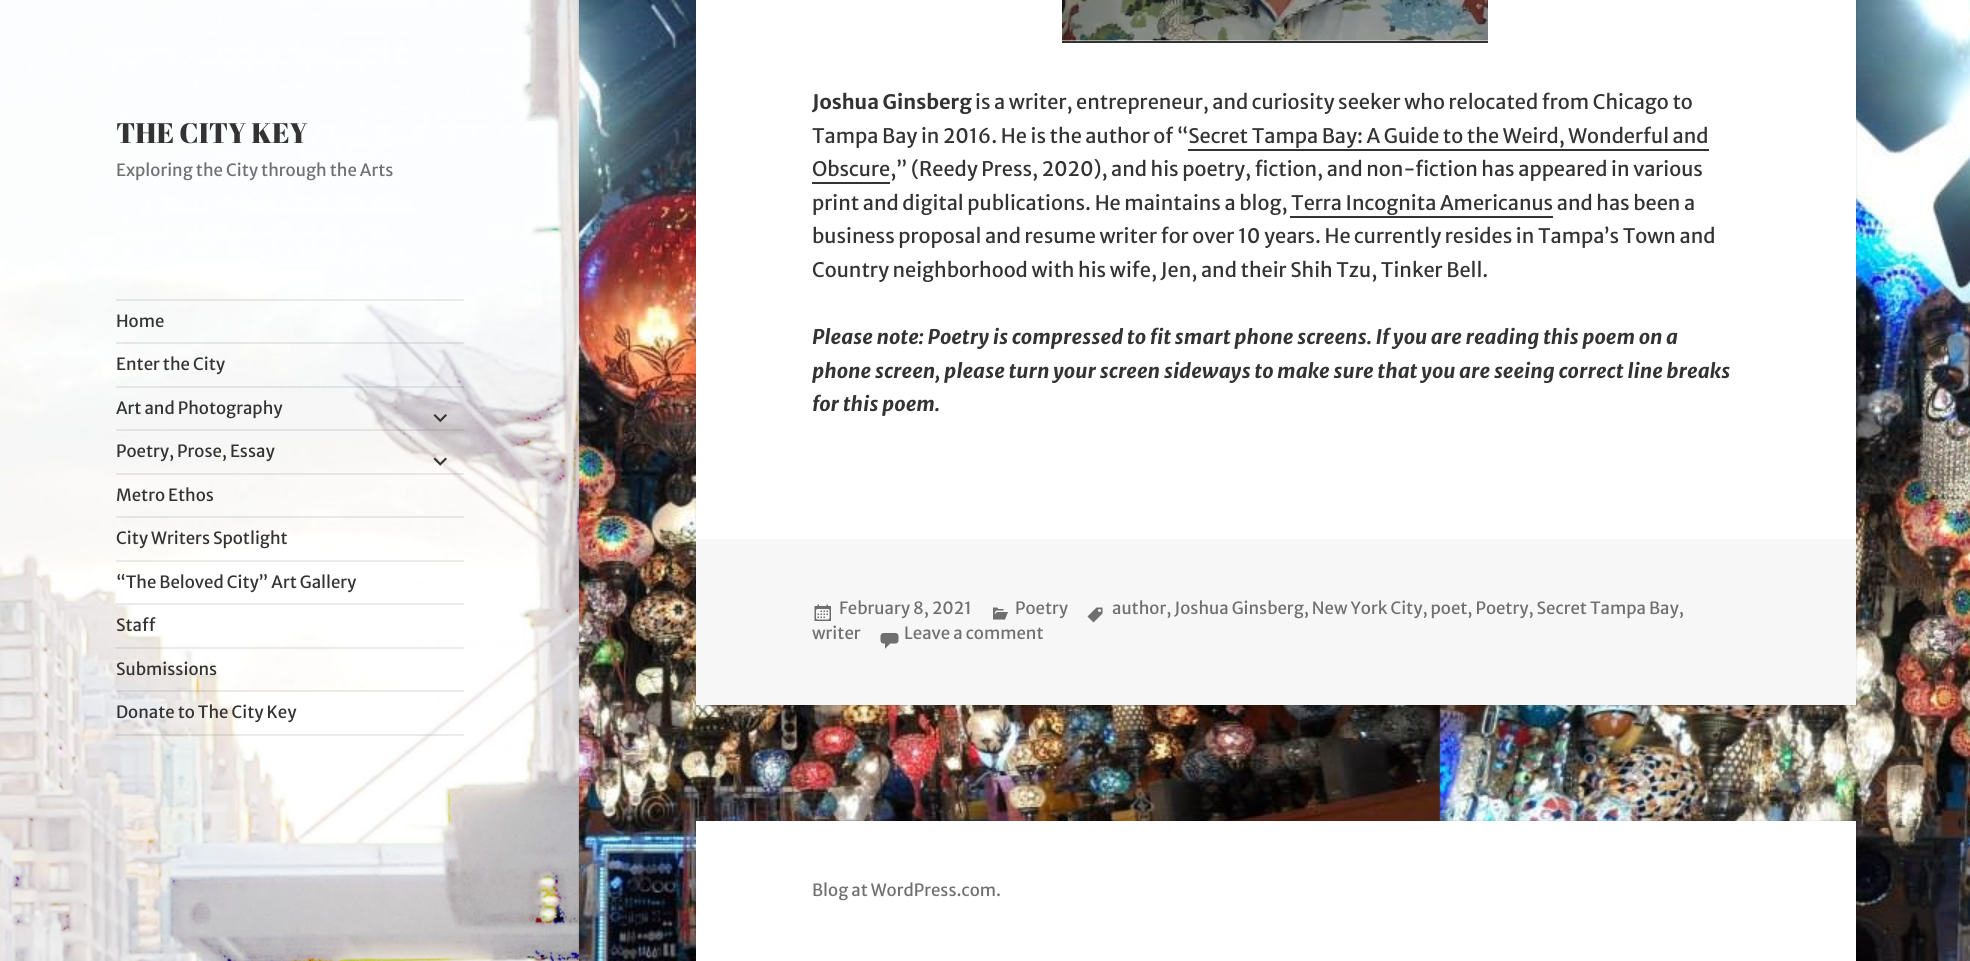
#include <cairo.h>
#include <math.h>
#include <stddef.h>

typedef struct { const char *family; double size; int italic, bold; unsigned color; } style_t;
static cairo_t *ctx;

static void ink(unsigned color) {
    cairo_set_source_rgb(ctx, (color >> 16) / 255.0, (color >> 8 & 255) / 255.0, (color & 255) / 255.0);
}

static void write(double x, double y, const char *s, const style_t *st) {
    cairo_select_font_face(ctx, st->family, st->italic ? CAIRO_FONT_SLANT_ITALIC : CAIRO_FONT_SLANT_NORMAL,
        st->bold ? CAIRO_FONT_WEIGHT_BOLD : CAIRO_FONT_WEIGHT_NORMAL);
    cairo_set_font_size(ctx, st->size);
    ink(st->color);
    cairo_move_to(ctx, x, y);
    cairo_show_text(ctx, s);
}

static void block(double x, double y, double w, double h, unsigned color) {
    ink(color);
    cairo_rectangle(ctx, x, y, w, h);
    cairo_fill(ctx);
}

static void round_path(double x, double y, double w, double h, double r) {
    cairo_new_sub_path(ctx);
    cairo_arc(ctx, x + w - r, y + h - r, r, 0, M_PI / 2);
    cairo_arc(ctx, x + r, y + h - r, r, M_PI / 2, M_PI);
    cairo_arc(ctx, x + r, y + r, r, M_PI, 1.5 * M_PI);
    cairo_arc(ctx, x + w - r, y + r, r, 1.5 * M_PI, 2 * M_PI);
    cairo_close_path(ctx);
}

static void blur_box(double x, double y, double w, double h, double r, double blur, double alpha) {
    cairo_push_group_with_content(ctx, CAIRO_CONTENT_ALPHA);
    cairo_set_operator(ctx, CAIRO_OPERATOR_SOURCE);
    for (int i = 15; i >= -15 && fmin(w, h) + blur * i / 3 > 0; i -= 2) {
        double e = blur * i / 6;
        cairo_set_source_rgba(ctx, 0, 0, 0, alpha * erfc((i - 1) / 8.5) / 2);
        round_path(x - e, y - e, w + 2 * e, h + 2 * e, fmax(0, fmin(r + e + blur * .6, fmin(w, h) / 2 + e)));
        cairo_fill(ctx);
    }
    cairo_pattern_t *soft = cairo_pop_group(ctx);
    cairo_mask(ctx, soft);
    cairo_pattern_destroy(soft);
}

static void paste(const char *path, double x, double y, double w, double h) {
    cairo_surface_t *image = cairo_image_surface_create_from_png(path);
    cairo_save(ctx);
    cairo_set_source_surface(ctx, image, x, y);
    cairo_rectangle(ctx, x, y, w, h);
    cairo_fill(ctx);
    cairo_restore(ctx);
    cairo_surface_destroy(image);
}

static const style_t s1 = {"Abril Fatface", 28.25, 0, 0, 0x333333};
static const style_t s2 = {"Merriweather Sans", 16.8, 0, 0, 0x707070};
static const style_t s3 = {"Merriweather Sans", 16.8, 0, 0, 0x333333};
static const style_t s4 = {"Merriweather Sans", 19.95, 0, 1, 0x333333};
static const style_t s5 = {"Merriweather Sans", 19.95, 0, 0, 0x333333};
static const style_t s6 = {"Merriweather Sans", 19.95, 1, 1, 0x333333};

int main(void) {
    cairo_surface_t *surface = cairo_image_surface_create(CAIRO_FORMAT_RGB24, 1970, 961);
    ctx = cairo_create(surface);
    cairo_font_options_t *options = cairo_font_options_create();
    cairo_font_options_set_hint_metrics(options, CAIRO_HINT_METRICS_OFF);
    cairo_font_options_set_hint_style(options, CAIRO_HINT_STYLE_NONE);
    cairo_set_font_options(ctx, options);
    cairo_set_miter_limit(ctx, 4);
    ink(0xffffff);
    cairo_paint(ctx);
    paste("pic1.png", 578, 0, 1392, 961);
    ink(0x000000);
    blur_box(0, 0, 579, 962, 0, 1, 0.15);
    paste("pic2.png", 0, 0, 580, 961);
    write(116, 143, "THE CITY KEY", &s1);
    write(116, 176, "Exploring the City through the Arts", &s2);
    cairo_set_source_rgba(ctx, 0.2, 0.2, 0.2, 0.1);
    cairo_rectangle(ctx, 116, 299, 348, 2);
    cairo_fill(ctx);
    cairo_rectangle(ctx, 116, 734, 348, 2);
    cairo_fill(ctx);
    write(116, 327, "Home", &s3);
    cairo_set_source_rgba(ctx, 0.2, 0.2, 0.2, 0.1);
    cairo_rectangle(ctx, 116, 342, 348, 2);
    cairo_fill(ctx);
    write(116, 370, "Enter the City", &s3);
    cairo_set_source_rgba(ctx, 0.2, 0.2, 0.2, 0.1);
    cairo_rectangle(ctx, 116, 386, 348, 2);
    cairo_fill(ctx);
    write(116, 414, "Art and Photography", &s3);
    paste("pic3.png", 433, 414, 14, 9);
    cairo_set_source_rgba(ctx, 0.2, 0.2, 0.2, 0.1);
    cairo_rectangle(ctx, 116, 429, 348, 2);
    cairo_fill(ctx);
    write(116, 457, "Poetry, Prose, Essay", &s3);
    paste("pic4.png", 433, 457, 14, 9);
    cairo_set_source_rgba(ctx, 0.2, 0.2, 0.2, 0.1);
    cairo_rectangle(ctx, 116, 473, 348, 2);
    cairo_fill(ctx);
    write(116, 501, "Metro Ethos", &s3);
    cairo_set_source_rgba(ctx, 0.2, 0.2, 0.2, 0.1);
    cairo_rectangle(ctx, 116, 516, 348, 2);
    cairo_fill(ctx);
    write(116, 544, "City Writers Spotlight", &s3);
    cairo_set_source_rgba(ctx, 0.2, 0.2, 0.2, 0.1);
    cairo_rectangle(ctx, 116, 560, 348, 2);
    cairo_fill(ctx);
    write(116, 588, "“The Beloved City” Art Gallery", &s3);
    cairo_set_source_rgba(ctx, 0.2, 0.2, 0.2, 0.1);
    cairo_rectangle(ctx, 116, 603, 348, 2);
    cairo_fill(ctx);
    write(116, 631, "Staff", &s3);
    cairo_set_source_rgba(ctx, 0.2, 0.2, 0.2, 0.1);
    cairo_rectangle(ctx, 116, 647, 348, 2);
    cairo_fill(ctx);
    write(116, 675, "Submissions", &s3);
    cairo_set_source_rgba(ctx, 0.2, 0.2, 0.2, 0.1);
    cairo_rectangle(ctx, 116, 690, 348, 2);
    cairo_fill(ctx);
    write(116, 718, "Donate to The City Key", &s3);
    ink(0x000000);
    blur_box(696, -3, 1160, 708, 0, 1, 0.15);
    block(696, 0, 1160, 539, 0xffffff);
    block(1062, 41, 426, 2, 0x333333);
    paste("pic5.png", 1062, 0, 426, 41);
    write(812, 109, "Joshua Ginsberg", &s4);
    write(975, 109, "is a writer, entrepreneur, and curiosity seeker who relocated from Chicago to", &s5);
    write(812, 143, "Tampa Bay in 2016. He is the author of “Secret Tampa Bay: A Guide to the Weird, Wonderful and", &s5);
    write(812, 176, "Obscure,” (Reedy Press, 2020), and his poetry, fiction, and non-fiction has appeared in various", &s5);
    block(1188, 149, 521, 2, 0x333333);
    block(812, 182, 78, 2, 0x333333);
    write(812, 210, "print and digital publications. He maintains a blog, Terra Incognita Americanus and has been a", &s5);
    block(1290, 216, 263, 2, 0x333333);
    write(812, 243, "business proposal and resume writer for over 10 years. He currently resides in Tampa’s Town and", &s5);
    write(812, 277, "Country neighborhood with his wife, Jen, and their Shih Tzu, Tinker Bell.", &s5);
    write(812, 344, "Please note: Poetry is compressed to fit smart phone screens. If you are reading this poem on a", &s6);
    write(812, 378, "phone screen, please turn your screen sideways to make sure that you are seeing correct line breaks", &s6);
    write(812, 411, "for this poem.", &s6);
    block(696, 539, 1160, 166, 0xf7f7f7);
    paste("pic6.png", 1087, 607, 16, 16);
    write(1112, 614, "author, Joshua Ginsberg, New York City, poet, Poetry, Secret Tampa Bay,", &s2);
    write(812, 639, "writer", &s2);
    paste("pic7.png", 814, 604, 17, 17);
    write(839, 614, "February 8, 2021", &s2);
    paste("pic8.png", 993, 607, 15, 13);
    write(1015, 614, "Poetry", &s2);
    paste("pic9.png", 880, 633, 19, 16);
    write(904, 639, "Leave a comment", &s2);
    ink(0x000000);
    blur_box(696, 821, 1160, 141, 0, 1, 0.15);
    block(696, 821, 1160, 140, 0xffffff);
    write(812, 896, "Blog at WordPress.com.", &s2);
    cairo_surface_write_to_png(surface, "screenshot.png");
    cairo_font_options_destroy(options);
    cairo_destroy(ctx);
    cairo_surface_destroy(surface);
    return 0;
}
